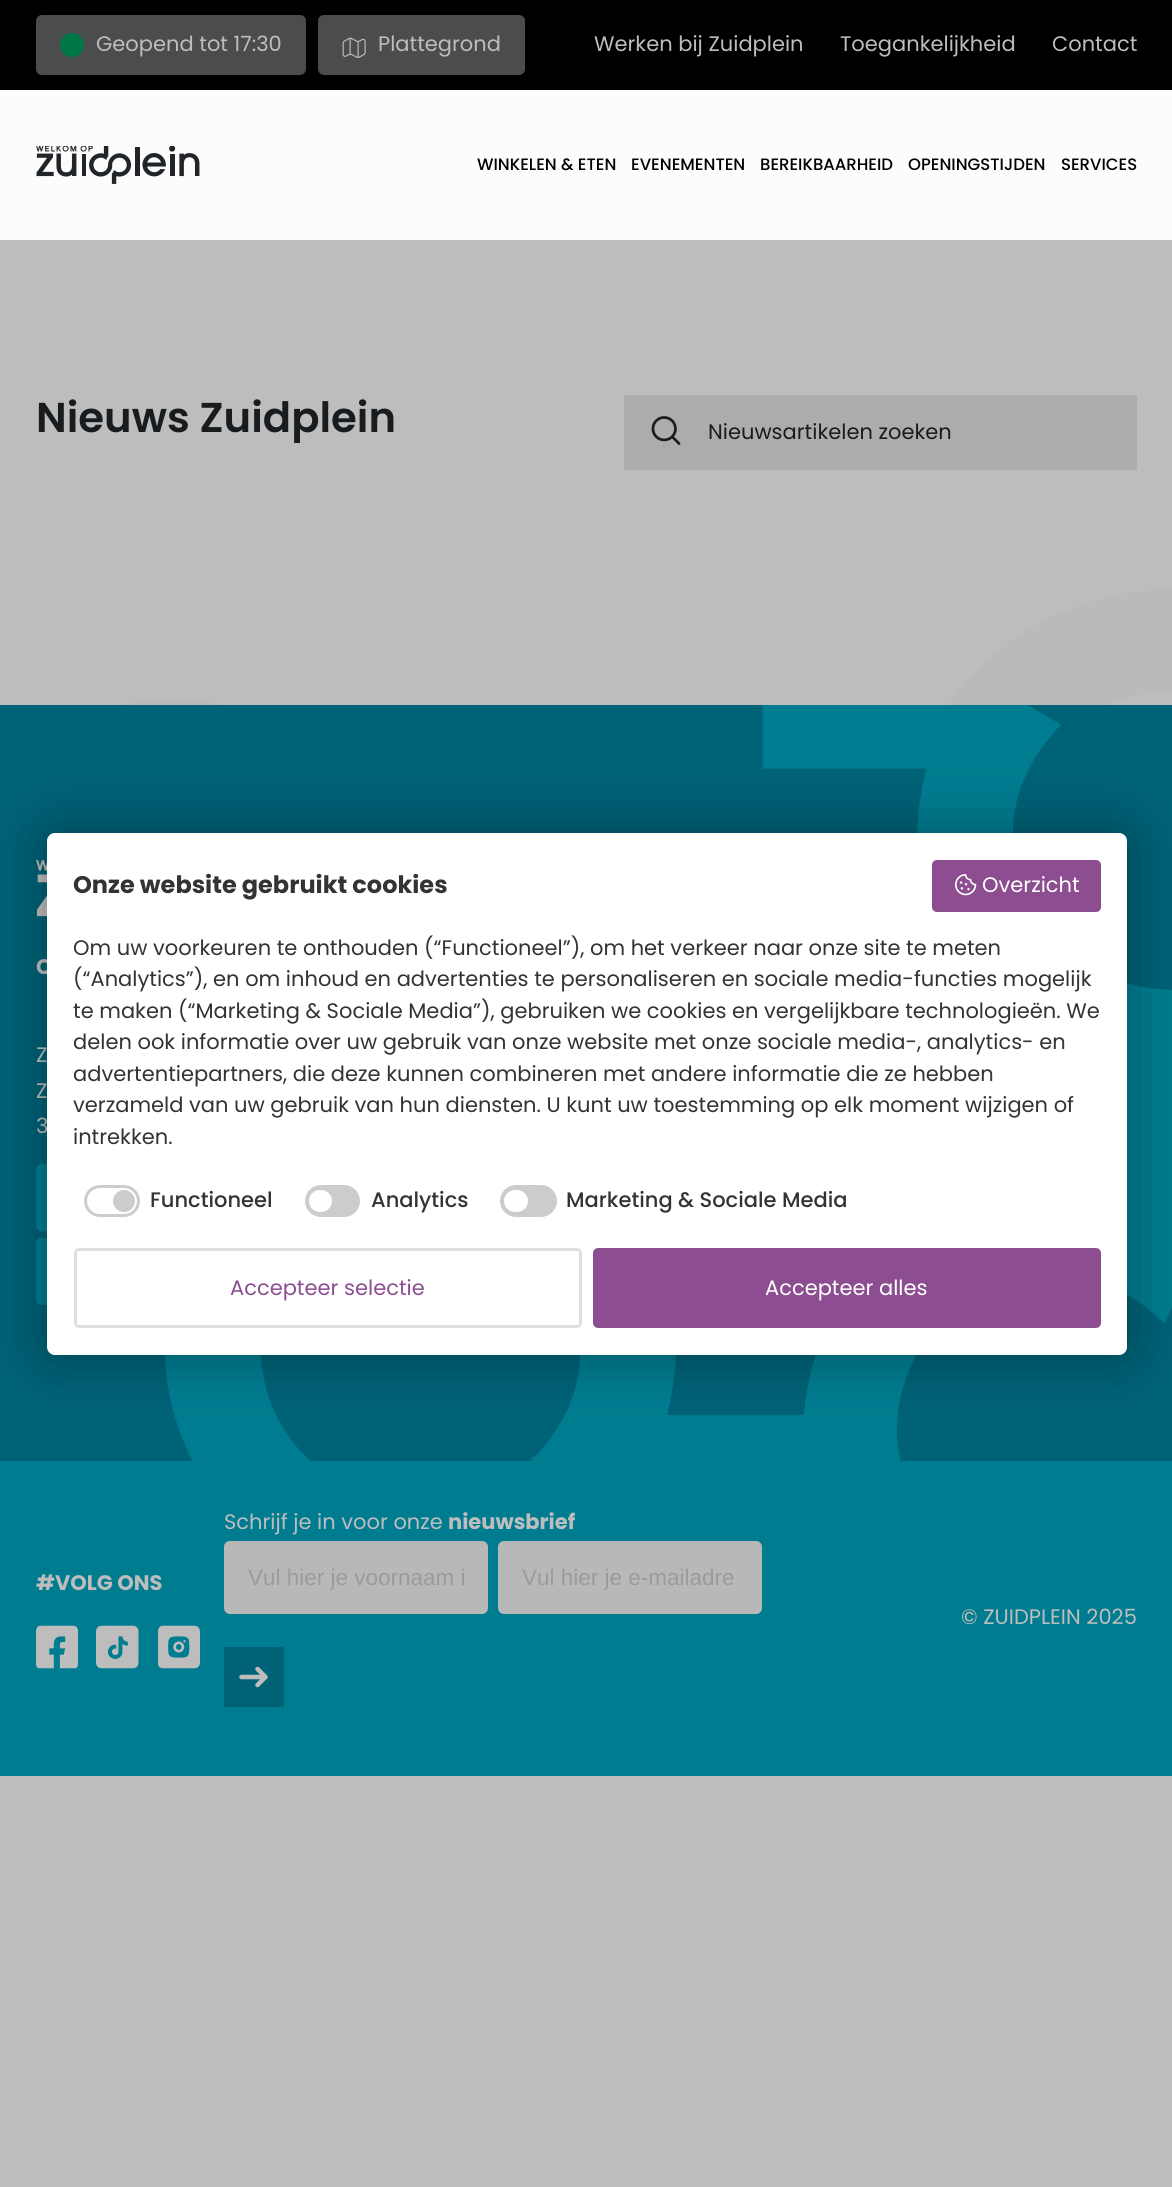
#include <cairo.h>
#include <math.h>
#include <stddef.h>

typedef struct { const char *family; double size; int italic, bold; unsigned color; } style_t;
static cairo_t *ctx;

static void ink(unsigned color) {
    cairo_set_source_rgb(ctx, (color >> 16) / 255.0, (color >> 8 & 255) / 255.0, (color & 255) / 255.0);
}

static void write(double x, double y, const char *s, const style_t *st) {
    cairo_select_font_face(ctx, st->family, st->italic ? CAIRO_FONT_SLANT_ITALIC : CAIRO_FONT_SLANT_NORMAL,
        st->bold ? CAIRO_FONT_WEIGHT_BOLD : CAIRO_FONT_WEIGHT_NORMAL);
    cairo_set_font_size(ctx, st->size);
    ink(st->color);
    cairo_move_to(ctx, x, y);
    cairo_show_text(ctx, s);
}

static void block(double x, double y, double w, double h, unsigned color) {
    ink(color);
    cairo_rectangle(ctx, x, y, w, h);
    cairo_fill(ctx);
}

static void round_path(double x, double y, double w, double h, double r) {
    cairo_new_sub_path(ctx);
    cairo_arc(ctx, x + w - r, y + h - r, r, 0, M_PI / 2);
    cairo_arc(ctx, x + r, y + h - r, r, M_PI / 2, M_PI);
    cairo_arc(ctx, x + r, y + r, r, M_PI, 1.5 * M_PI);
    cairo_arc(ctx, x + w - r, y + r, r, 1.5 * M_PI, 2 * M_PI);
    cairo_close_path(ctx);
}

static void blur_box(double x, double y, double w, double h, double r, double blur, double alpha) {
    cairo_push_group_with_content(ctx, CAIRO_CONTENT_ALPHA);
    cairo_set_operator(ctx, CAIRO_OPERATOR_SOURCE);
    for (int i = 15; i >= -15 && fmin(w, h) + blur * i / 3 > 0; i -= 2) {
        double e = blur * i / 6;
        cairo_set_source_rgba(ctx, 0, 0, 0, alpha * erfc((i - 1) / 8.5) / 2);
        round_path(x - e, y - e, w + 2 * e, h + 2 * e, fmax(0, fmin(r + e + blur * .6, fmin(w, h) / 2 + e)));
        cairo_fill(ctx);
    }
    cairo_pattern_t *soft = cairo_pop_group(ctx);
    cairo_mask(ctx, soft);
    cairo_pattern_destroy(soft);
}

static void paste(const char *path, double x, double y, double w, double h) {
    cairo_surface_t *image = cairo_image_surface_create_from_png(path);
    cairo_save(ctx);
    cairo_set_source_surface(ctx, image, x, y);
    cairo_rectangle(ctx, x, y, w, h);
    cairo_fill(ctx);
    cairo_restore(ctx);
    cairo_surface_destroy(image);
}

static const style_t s1 = {"Poppins", 21, 0, 0, 0xbdbdbd};
static const style_t s2 = {"Poppins Medium", 16.5, 0, 0, 0x000000};
static const style_t s3 = {"Poppins SemiBold", 41.75, 0, 0, 0x191c1f};
static const style_t s4 = {"Poppins", 21, 0, 0, 0x191c1f};
static const style_t s5 = {"Poppins", 21, 0, 1, 0xbdbdbd};
static const style_t s6 = {"Poppins", 24, 0, 1, 0x333333};
static const style_t s7 = {"Poppins", 21, 0, 0, 0xffffff};
static const style_t s8 = {"Poppins", 21, 0, 0, 0x333333};
static const style_t s9 = {"Poppins Medium", 21, 0, 0, 0x333333};
static const style_t s10 = {"Poppins", 21, 0, 0, 0x8c4e90};
static const style_t s11 = {"Liberation Sans", 22.5, 0, 0, 0x9b9b9b};

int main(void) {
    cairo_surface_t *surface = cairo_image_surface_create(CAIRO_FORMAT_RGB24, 1172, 2187);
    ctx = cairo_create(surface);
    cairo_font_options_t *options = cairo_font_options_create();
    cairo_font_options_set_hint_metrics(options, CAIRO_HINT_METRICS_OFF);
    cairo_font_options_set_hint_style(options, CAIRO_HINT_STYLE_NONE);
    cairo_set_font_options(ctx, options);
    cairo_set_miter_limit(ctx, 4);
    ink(0xbdbdbd);
    cairo_paint(ctx);
    block(0, 0, 1172, 90, 0x000000);
    ink(0x4a4c4e);
    round_path(36, 15, 270, 60, 6);
    cairo_fill(ctx);
    ink(0x007747);
    cairo_arc(ctx, 72, 45, 12, 0, 2 * M_PI);
    cairo_fill(ctx);
    write(96, 51, "Geopend tot 17:30", &s1);
    ink(0x4a4c4e);
    round_path(318, 15, 207, 60, 6);
    cairo_fill(ctx);
    paste("pic1.png", 342, 37, 24, 21);
    write(378, 51, "Plattegrond", &s1);
    write(594, 51, "Werken bij Zuidplein", &s1);
    write(840, 51, "Toegankelijkheid", &s1);
    write(1052, 51, "Contact", &s1);
    block(0, 90, 1172, 150, 0xfcfcfc);
    paste("pic2.png", 36, 146, 164, 38);
    write(477, 170, "WINKELEN & ETEN", &s2);
    write(631, 170, "EVENEMENTEN", &s2);
    write(760, 170, "BEREIKBAARHEID", &s2);
    write(908, 170, "OPENINGSTIJDEN", &s2);
    write(1061, 170, "SERVICES", &s2);
    write(36, 432, "Nieuws Zuidplein", &s3);
    block(624, 395, 513, 75, 0xadacac);
    paste("pic3.png", 651, 416, 30, 29);
    write(708, 439, "Nieuwsartikelen zoeken", &s4);
    paste("pic4.png", 123, 590, 1049, 115);
    block(0, 705, 1172, 756, 0x006277);
    paste("pic5.png", 165, 705, 1007, 756);
    paste("pic6.png", 36, 860, 11, 57);
    write(36, 974, "C", &s5);
    write(36, 1062, "Z", &s1);
    write(36, 1098, "Z", &s1);
    write(36, 1133, "3", &s1);
    paste("pic7.png", 36, 1164, 11, 68);
    paste("pic8.png", 36, 1238, 11, 67);
    ink(0x000000);
    blur_box(47, 833, 1080, 522, 8, 30, 0.33);
    ink(0xffffff);
    round_path(47, 833, 1080, 522, 8);
    cairo_fill(ctx);
    write(73, 893, "Onze website gebruikt cookies", &s6);
    ink(0x8c4e90);
    round_path(932, 860, 169, 52, 5);
    cairo_fill(ctx);
    paste("pic9.png", 955, 874, 22, 22);
    write(982, 892, "Overzicht", &s7);
    write(73, 955, "Om uw voorkeuren te onthouden (“Functioneel”), om het verkeer naar onze site te meten", &s8);
    write(73, 986, "(“Analytics”), en om inhoud en advertenties te personaliseren en sociale media-functies mogelijk", &s8);
    write(73, 1018, "te maken (“Marketing & Sociale Media”), gebruiken we cookies en vergelijkbare technologieën. We", &s8);
    write(73, 1049, "delen ook informatie over uw gebruik van onze website met onze sociale media-, analytics- en", &s8);
    write(73, 1081, "advertentiepartners, die deze kunnen combineren met andere informatie die ze hebben", &s8);
    write(73, 1112, "verzameld van uw gebruik van hun diensten. U kunt uw toestemming op elk moment wijzigen of", &s8);
    write(73, 1144, "intrekken.", &s8);
    round_path(85.5, 1186.5, 53, 29, 14.5);
    ink(0xcccccc);
    cairo_set_line_width(ctx, 3);
    cairo_stroke(ctx);
    cairo_arc(ctx, 124, 1201, 11, 0, 2 * M_PI);
    cairo_fill(ctx);
    write(150, 1207, "Functioneel", &s9);
    ink(0xcccccc);
    round_path(306.5, 1186.5, 52, 29, 14.5);
    cairo_fill_preserve(ctx);
    cairo_stroke(ctx);
    ink(0xffffff);
    round_path(309, 1190, 23, 22, 11);
    cairo_fill(ctx);
    write(371, 1207, "Analytics", &s9);
    ink(0xcccccc);
    round_path(501.5, 1186.5, 54, 29, 14.5);
    cairo_fill_preserve(ctx);
    cairo_stroke(ctx);
    ink(0xffffff);
    round_path(504, 1190, 24, 22, 11);
    cairo_fill(ctx);
    write(566, 1207, "Marketing & Sociale Media", &s9);
    round_path(75.5, 1249.5, 505, 77, 3.5);
    ink(0xe0e0e0);
    cairo_stroke(ctx);
    write(230, 1295, "Accepteer selectie", &s10);
    round_path(594.5, 1249.5, 505, 77, 3.5);
    cairo_fill_preserve(ctx);
    cairo_stroke(ctx);
    write(765, 1295, "Accepteer alles", &s7);
    block(0, 1461, 1172, 315, 0x007c90);
    write(36, 1590, "#VOLG ONS", &s5);
    paste("pic10.png", 36, 1625, 42, 44);
    paste("pic11.png", 96, 1625, 43, 44);
    paste("pic12.png", 158, 1625, 42, 44);
    write(224, 1529, "Schrijf je in voor onze", &s1);
    write(448, 1529, "nieuwsbrief", &s5);
    ink(0xb8b8b8);
    round_path(224, 1541, 264, 73, 6);
    cairo_fill(ctx);
    write(248, 1585, "Vul hier je voornaam i", &s11);
    ink(0xb8b8b8);
    round_path(498, 1541, 264, 73, 6);
    cairo_fill(ctx);
    write(522, 1585, "Vul hier je e-mailadre", &s11);
    block(224, 1647, 60, 60, 0x006277);
    cairo_new_path(ctx);
    cairo_move_to(ctx, 241.5, 1677);
    cairo_line_to(ctx, 265.5, 1677);
    cairo_line_to(ctx, 257.5, 1669);
    cairo_move_to(ctx, 265.5, 1677);
    cairo_line_to(ctx, 257.5, 1685);
    ink(0xbdbdbd);
    cairo_set_line_width(ctx, 4.5);
    cairo_set_line_cap(ctx, CAIRO_LINE_CAP_ROUND);
    cairo_set_line_join(ctx, CAIRO_LINE_JOIN_ROUND);
    cairo_stroke(ctx);
    write(961, 1624, "© ZUIDPLEIN 2025", &s1);
    cairo_surface_write_to_png(surface, "screenshot.png");
    cairo_font_options_destroy(options);
    cairo_destroy(ctx);
    cairo_surface_destroy(surface);
    return 0;
}
